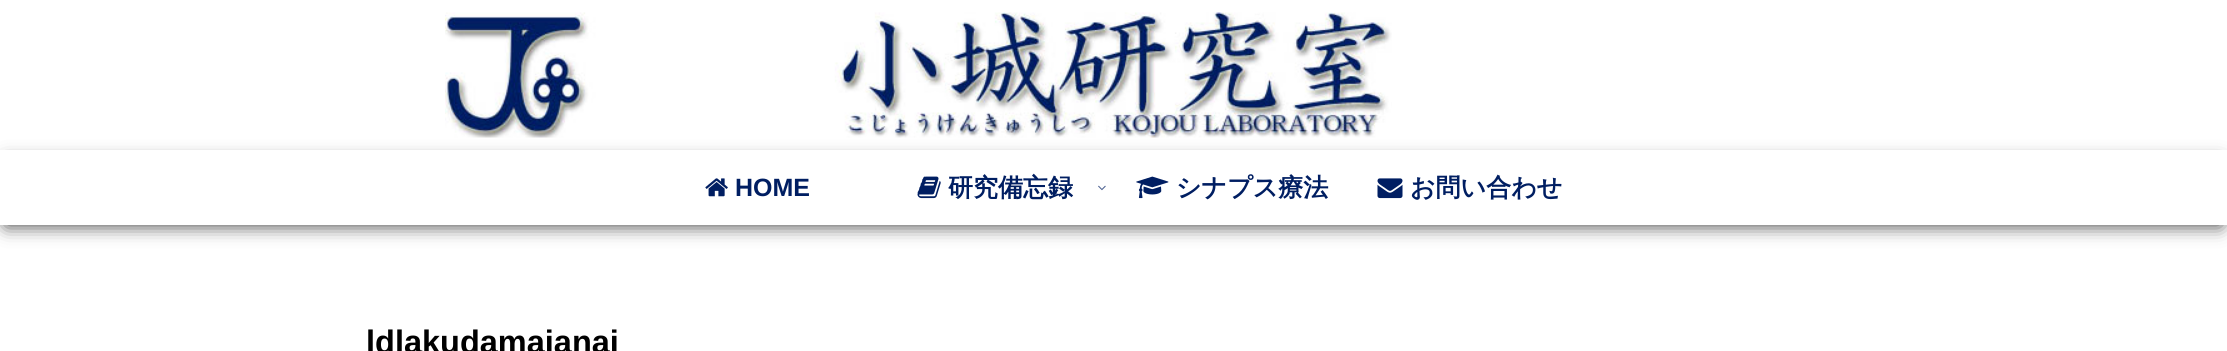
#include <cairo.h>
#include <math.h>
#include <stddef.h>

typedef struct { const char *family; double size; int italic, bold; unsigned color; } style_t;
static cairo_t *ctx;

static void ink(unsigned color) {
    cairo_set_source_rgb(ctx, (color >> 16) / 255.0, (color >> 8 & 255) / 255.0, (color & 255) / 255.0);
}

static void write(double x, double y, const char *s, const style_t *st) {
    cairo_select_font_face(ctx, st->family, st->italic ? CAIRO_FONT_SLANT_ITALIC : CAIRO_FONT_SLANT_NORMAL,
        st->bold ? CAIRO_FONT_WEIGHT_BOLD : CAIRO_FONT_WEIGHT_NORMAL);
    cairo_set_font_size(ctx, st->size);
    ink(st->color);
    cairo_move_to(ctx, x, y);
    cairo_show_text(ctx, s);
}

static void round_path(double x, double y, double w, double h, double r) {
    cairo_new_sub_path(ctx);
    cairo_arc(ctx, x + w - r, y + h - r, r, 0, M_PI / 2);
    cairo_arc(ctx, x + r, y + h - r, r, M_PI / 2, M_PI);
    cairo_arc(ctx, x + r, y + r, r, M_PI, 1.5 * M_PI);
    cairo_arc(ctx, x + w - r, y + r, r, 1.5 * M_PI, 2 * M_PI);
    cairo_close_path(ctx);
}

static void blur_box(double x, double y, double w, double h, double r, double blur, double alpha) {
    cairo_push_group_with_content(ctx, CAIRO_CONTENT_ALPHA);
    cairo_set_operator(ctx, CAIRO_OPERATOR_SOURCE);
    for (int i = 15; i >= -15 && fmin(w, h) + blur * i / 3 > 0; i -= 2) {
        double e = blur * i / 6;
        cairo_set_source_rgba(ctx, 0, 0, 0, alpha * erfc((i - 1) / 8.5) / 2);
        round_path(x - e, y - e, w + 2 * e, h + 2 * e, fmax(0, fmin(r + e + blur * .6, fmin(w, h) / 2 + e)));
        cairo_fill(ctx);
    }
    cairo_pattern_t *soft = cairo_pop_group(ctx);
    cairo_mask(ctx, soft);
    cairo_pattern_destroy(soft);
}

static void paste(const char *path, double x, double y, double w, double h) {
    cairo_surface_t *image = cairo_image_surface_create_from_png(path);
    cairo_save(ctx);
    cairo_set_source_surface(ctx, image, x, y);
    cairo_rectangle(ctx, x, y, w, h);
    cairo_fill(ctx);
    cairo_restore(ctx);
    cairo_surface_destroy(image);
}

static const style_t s1 = {"Liberation Sans", 25, 0, 1, 0x001e62};
static const style_t s2 = {"WenQuanYi Zen Hei", 25, 0, 1, 0x001e62};
static const style_t s3 = {"Liberation Sans", 32.5, 0, 1, 0x000000};

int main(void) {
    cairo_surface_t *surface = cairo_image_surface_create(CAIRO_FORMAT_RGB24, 2227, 351);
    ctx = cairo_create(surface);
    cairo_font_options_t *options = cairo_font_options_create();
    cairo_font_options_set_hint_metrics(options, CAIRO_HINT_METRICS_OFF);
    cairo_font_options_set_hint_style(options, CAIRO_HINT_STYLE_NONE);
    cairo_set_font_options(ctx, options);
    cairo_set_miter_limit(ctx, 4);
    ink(0xffffff);
    cairo_paint(ctx);
    cairo_save(ctx);
    cairo_set_fill_rule(ctx, CAIRO_FILL_RULE_EVEN_ODD);
    cairo_new_path(ctx);
    cairo_move_to(ctx, 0, 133);
    cairo_line_to(ctx, 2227, 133);
    cairo_line_to(ctx, 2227, 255);
    cairo_line_to(ctx, 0, 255);
    cairo_close_path(ctx);
    cairo_move_to(ctx, 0, 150);
    cairo_line_to(ctx, 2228, 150);
    cairo_line_to(ctx, 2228, 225);
    cairo_line_to(ctx, 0, 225);
    cairo_close_path(ctx);
    cairo_clip(ctx);
    ink(0x000000);
    blur_box(6, 163, 2215, 62, 0, 9.5, 0.8);
    cairo_restore(ctx);
    paste("pic1.png", 445, 12, 947, 126);
    paste("pic2.png", 705, 178, 23, 19);
    write(735, 196, "HOME", &s1);
    paste("pic3.png", 917, 176, 24, 23);
    write(948, 196, "研究備忘録", &s2);
    paste("pic4.png", 1098, 185, 8, 6);
    paste("pic5.png", 1136, 176, 33, 23);
    write(1176, 196, "シナプス療法", &s2);
    paste("pic6.png", 1377, 178, 26, 21);
    write(1410, 196, "お問い合わせ", &s2);
    write(366, 353, "ldlakudamajanai", &s3);
    cairo_surface_write_to_png(surface, "screenshot.png");
    cairo_font_options_destroy(options);
    cairo_destroy(ctx);
    cairo_surface_destroy(surface);
    return 0;
}
